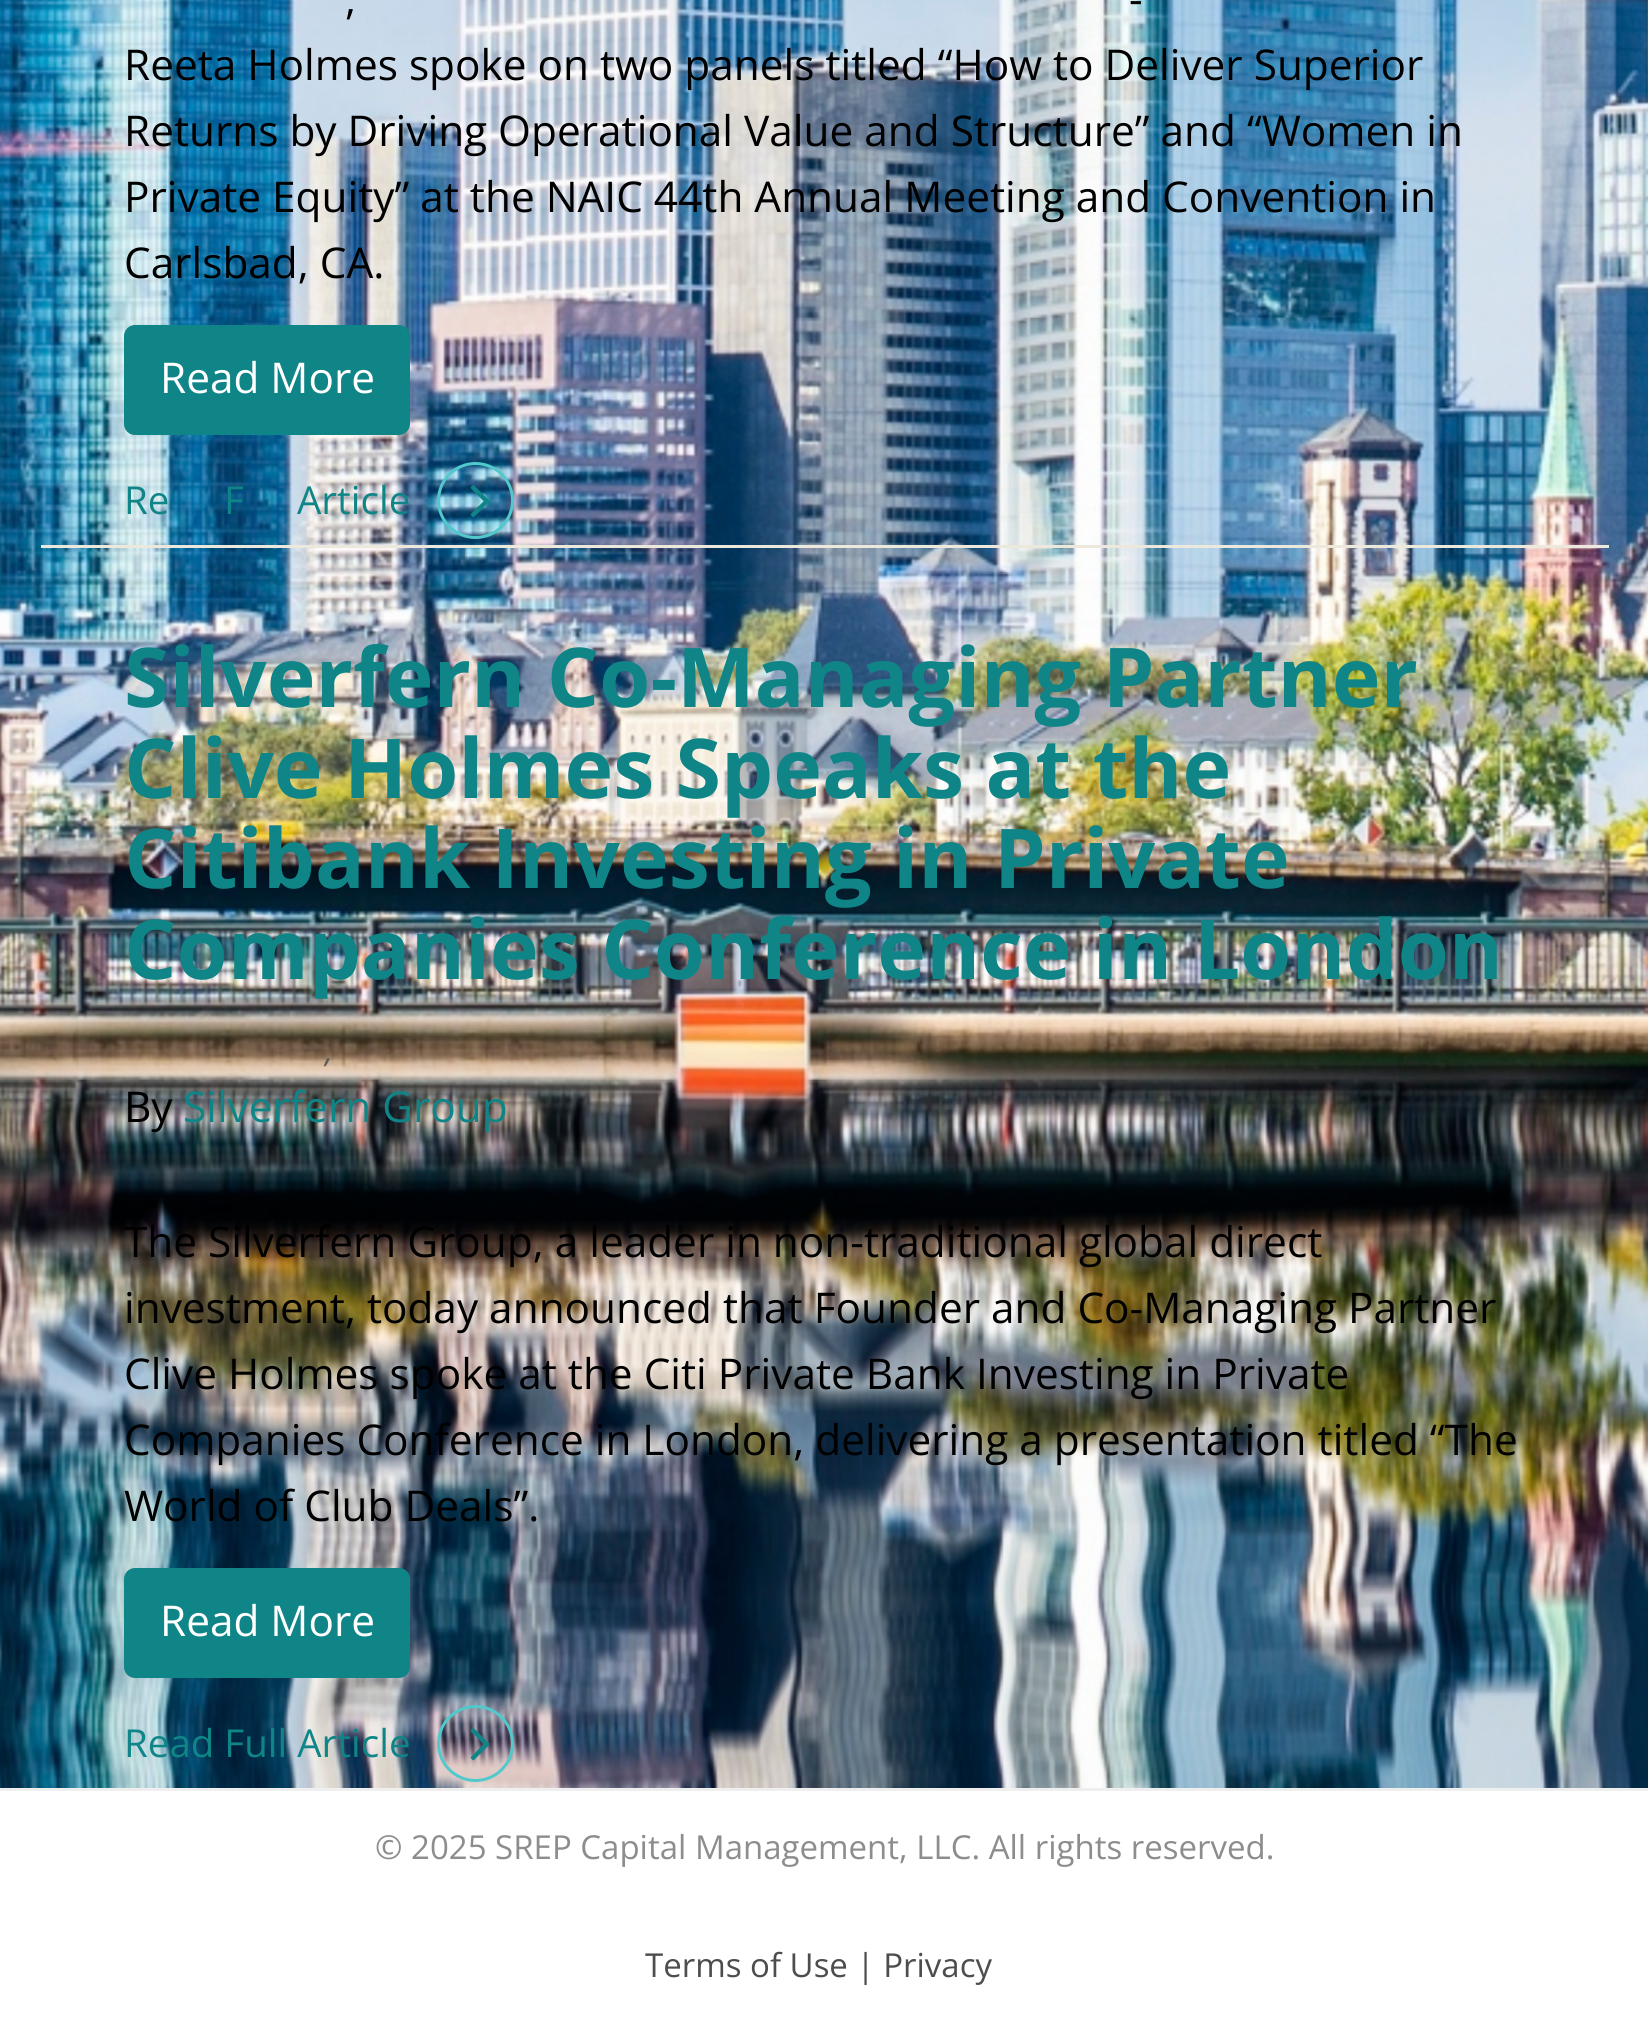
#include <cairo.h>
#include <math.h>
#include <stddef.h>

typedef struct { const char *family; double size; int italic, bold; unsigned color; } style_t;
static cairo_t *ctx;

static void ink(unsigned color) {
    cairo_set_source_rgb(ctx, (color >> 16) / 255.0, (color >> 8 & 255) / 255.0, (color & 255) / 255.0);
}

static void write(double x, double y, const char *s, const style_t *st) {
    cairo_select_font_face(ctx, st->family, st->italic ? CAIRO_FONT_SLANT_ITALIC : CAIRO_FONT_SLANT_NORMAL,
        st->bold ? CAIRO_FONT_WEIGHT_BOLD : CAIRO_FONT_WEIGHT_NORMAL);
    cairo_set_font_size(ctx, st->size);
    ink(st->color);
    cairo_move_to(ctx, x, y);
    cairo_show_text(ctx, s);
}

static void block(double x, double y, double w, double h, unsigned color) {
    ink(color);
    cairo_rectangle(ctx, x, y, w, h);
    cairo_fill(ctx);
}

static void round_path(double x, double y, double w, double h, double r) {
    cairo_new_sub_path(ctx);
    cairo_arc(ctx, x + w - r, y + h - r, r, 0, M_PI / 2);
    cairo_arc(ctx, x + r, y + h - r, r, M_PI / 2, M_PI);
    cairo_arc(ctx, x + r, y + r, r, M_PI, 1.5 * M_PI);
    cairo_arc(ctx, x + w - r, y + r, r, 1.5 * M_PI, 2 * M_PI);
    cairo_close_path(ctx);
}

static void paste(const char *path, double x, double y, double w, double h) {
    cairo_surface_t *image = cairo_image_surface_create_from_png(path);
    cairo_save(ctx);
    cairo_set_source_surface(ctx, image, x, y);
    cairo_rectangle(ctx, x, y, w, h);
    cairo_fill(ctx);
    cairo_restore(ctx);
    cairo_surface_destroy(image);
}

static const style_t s1 = {"Open Sans", 42.35, 0, 0, 0x000000};
static const style_t s2 = {"Open Sans", 42.35, 0, 0, 0xffffff};
static const style_t s3 = {"Open Sans", 38.5, 0, 0, 0x0f8588};
static const style_t s4 = {"Open Sans", 82.5, 0, 1, 0x0f8588};
static const style_t s5 = {"Open Sans", 33, 1, 0, 0x5c5c5c};
static const style_t s6 = {"Open Sans", 42.35, 0, 0, 0x0f8588};
static const style_t s7 = {"Open Sans", 33, 0, 0, 0x8d8d8d};
static const style_t s8 = {"Open Sans", 33, 0, 0, 0x4d4d4d};

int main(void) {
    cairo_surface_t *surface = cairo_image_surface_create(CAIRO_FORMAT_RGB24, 1648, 2023);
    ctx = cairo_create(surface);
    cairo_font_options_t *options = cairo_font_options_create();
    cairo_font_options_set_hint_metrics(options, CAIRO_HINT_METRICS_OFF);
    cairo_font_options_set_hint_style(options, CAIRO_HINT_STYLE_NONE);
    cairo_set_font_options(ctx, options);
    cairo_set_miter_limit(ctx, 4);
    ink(0xffffff);
    cairo_paint(ctx);
    paste("pic1.png", 0, 0, 1648, 1788);
    block(41, 545, 1568, 3, 0xece8db);
    write(1129, 14, "-", &s1);
    write(345, 14, ",", &s1);
    write(124, 80, "Reeta Holmes spoke on two panels titled “How to Deliver Superior", &s1);
    write(124, 146, "Returns by Driving Operational Value and Structure” and “Women in", &s1);
    write(124, 212, "Private Equity” at the NAIC 44th Annual Meeting and Convention in", &s1);
    write(124, 278, "Carlsbad, CA.", &s1);
    ink(0x0f8588);
    round_path(124, 325, 286, 110, 11);
    cairo_fill(ctx);
    write(160, 393, "Read More", &s2);
    write(124, 514, "Re", &s3);
    write(224, 514, "F", &s3);
    write(297, 514, "Article", &s3);
    cairo_new_path(ctx);
    cairo_arc(ctx, 475.5, 500.5, 37, 0, 2 * M_PI);
    ink(0x51c9cc);
    cairo_set_line_width(ctx, 3);
    cairo_stroke(ctx);
    paste("pic2.png", 470, 485, 20, 33);
    write(124, 707, "Silverfern Co-Managing Partner", &s4);
    write(124, 798, "Clive Holmes Speaks at the", &s4);
    write(124, 888, "Citibank Investing in Private", &s4);
    write(124, 979, "Companies Conference in London", &s4);
    write(325, 1062, ",", &s5);
    write(124, 1122, "By", &s1);
    write(183, 1122, "Silverfern Group", &s6);
    write(124, 1257, "The Silverfern Group, a leader in non-traditional global direct", &s1);
    write(124, 1323, "investment, today announced that Founder and Co-Managing Partner", &s1);
    write(124, 1389, "Clive Holmes spoke at the Citi Private Bank Investing in Private", &s1);
    write(124, 1455, "Companies Conference in London, delivering a presentation titled “The", &s1);
    write(124, 1521, "World of Club Deals”.", &s1);
    ink(0x0f8588);
    round_path(124, 1568, 286, 110, 11);
    cairo_fill(ctx);
    write(160, 1636, "Read More", &s2);
    write(124, 1757, "Read Full Article", &s3);
    cairo_new_path(ctx);
    cairo_arc(ctx, 475.5, 1743.5, 37, 0, 2 * M_PI);
    ink(0x51c9cc);
    cairo_stroke(ctx);
    paste("pic3.png", 470, 1728, 20, 33);
    block(0, 1788, 1648, 3, 0xefefef);
    write(375, 1859, "© 2025 SREP Capital Management, LLC. All rights reserved.", &s7);
    write(645, 1977, "Terms of Use | Privacy", &s8);
    cairo_surface_write_to_png(surface, "screenshot.png");
    cairo_font_options_destroy(options);
    cairo_destroy(ctx);
    cairo_surface_destroy(surface);
    return 0;
}
